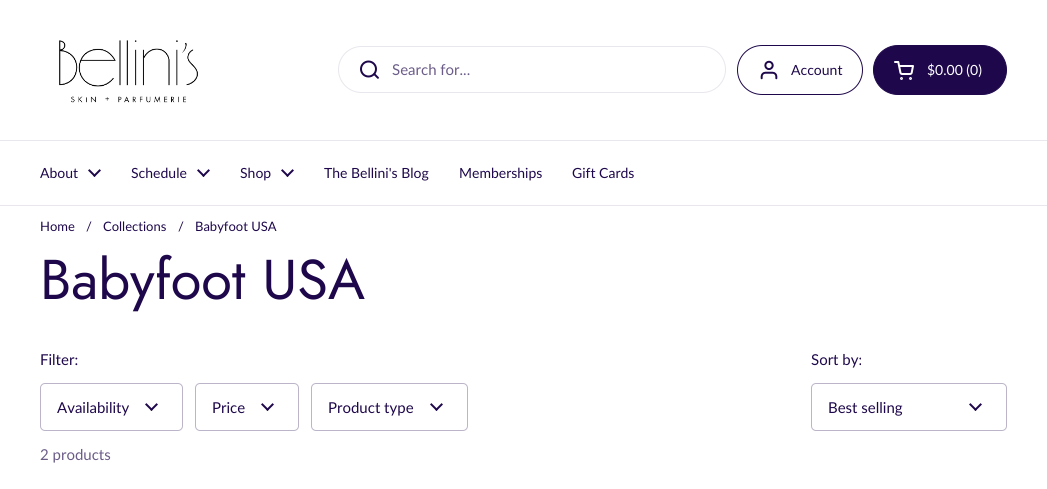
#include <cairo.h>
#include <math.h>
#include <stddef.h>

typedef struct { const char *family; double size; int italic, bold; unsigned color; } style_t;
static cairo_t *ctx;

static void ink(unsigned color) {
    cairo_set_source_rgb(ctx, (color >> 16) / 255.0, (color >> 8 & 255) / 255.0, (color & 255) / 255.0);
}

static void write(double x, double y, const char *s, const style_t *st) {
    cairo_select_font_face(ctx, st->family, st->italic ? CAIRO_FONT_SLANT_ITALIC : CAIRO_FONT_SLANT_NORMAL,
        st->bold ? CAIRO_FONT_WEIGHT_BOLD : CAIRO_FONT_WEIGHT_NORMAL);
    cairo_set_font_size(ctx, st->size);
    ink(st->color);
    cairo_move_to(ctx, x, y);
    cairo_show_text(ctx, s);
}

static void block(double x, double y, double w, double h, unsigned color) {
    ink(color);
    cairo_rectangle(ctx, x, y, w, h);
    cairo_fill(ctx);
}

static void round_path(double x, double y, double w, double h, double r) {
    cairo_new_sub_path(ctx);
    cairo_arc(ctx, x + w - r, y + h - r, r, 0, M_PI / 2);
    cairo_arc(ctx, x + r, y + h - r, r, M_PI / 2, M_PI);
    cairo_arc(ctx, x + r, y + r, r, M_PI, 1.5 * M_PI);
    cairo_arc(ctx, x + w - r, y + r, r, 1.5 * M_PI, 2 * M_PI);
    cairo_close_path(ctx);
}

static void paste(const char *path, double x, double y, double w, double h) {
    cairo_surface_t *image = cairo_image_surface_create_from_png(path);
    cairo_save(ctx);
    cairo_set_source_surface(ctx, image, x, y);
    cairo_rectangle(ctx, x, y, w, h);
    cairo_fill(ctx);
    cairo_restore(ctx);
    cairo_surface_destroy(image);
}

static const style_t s1 = {"Lato", 15, 0, 0, 0x6b5c88};
static const style_t s2 = {"Lato", 14, 0, 0, 0x1e084b};
static const style_t s3 = {"Lato", 14, 0, 0, 0xffffff};
static const style_t s4 = {"Lato", 13, 0, 0, 0x1e084b};
static const style_t s5 = {"Jost", 56, 0, 0, 0x1e084b};
static const style_t s6 = {"Lato", 15, 0, 0, 0x1e084b};

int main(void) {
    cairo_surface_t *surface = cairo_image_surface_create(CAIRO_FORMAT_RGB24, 1047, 489);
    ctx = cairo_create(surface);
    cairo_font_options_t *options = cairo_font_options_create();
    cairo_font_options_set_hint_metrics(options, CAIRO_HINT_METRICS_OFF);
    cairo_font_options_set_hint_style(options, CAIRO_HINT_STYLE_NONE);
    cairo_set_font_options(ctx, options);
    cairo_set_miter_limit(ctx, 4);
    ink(0xffffff);
    cairo_paint(ctx);
    block(0, 140, 1047, 1, 0xe9e6ed);
    paste("pic1.png", 59, 40, 139, 63);
    round_path(338.5, 46.5, 387, 46, 23);
    cairo_set_line_width(ctx, 1);
    cairo_stroke(ctx);
    paste("pic2.png", 360, 60, 19, 19);
    write(392, 75, "Search for...", &s1);
    round_path(737.5, 45.5, 125, 49, 24.5);
    ink(0x1e084b);
    cairo_stroke(ctx);
    paste("pic3.png", 760, 60, 18, 20);
    write(791, 75, "Account", &s2);
    round_path(873.5, 45.5, 133, 49, 24.5);
    cairo_fill_preserve(ctx);
    cairo_stroke(ctx);
    paste("pic4.png", 894, 61, 20, 19);
    write(927, 75, "$0.00 (0)", &s3);
    block(0, 205, 1047, 1, 0xe9e6ed);
    write(40, 178, "About", &s2);
    paste("pic5.png", 88, 169, 13, 8);
    write(131, 178, "Schedule", &s2);
    paste("pic5.png", 197, 169, 13, 8);
    write(240, 178, "Shop", &s2);
    paste("pic5.png", 281, 169, 13, 8);
    write(324, 178, "The Bellini's Blog", &s2);
    write(459, 178, "Memberships", &s2);
    write(572, 178, "Gift Cards", &s2);
    write(40, 231, "Home", &s4);
    write(86, 231, "/", &s4);
    write(103, 231, "Collections", &s4);
    write(178, 231, "/", &s4);
    write(195, 231, "Babyfoot USA", &s4);
    write(40, 299, "Babyfoot USA", &s5);
    write(40, 365, "Filter:", &s6);
    paste("pic5.png", 145, 403, 13, 8);
    round_path(40.5, 383.5, 142, 47, 4.5);
    ink(0xbcb5c9);
    cairo_stroke(ctx);
    write(57, 413, "Availability", &s6);
    paste("pic5.png", 261, 403, 13, 8);
    round_path(195.5, 383.5, 103, 47, 4.5);
    ink(0xbcb5c9);
    cairo_stroke(ctx);
    write(212, 413, "Price", &s6);
    paste("pic5.png", 430, 403, 13, 8);
    round_path(311.5, 383.5, 156, 47, 4.5);
    ink(0xbcb5c9);
    cairo_stroke(ctx);
    write(328, 413, "Product type", &s6);
    write(811, 365, "Sort by:", &s6);
    paste("pic5.png", 969, 403, 13, 8);
    round_path(811.5, 383.5, 195, 47, 4.5);
    ink(0xbcb5c9);
    cairo_stroke(ctx);
    write(828, 413, "Best selling", &s6);
    write(40, 460, "2 products", &s1);
    cairo_surface_write_to_png(surface, "screenshot.png");
    cairo_font_options_destroy(options);
    cairo_destroy(ctx);
    cairo_surface_destroy(surface);
    return 0;
}
